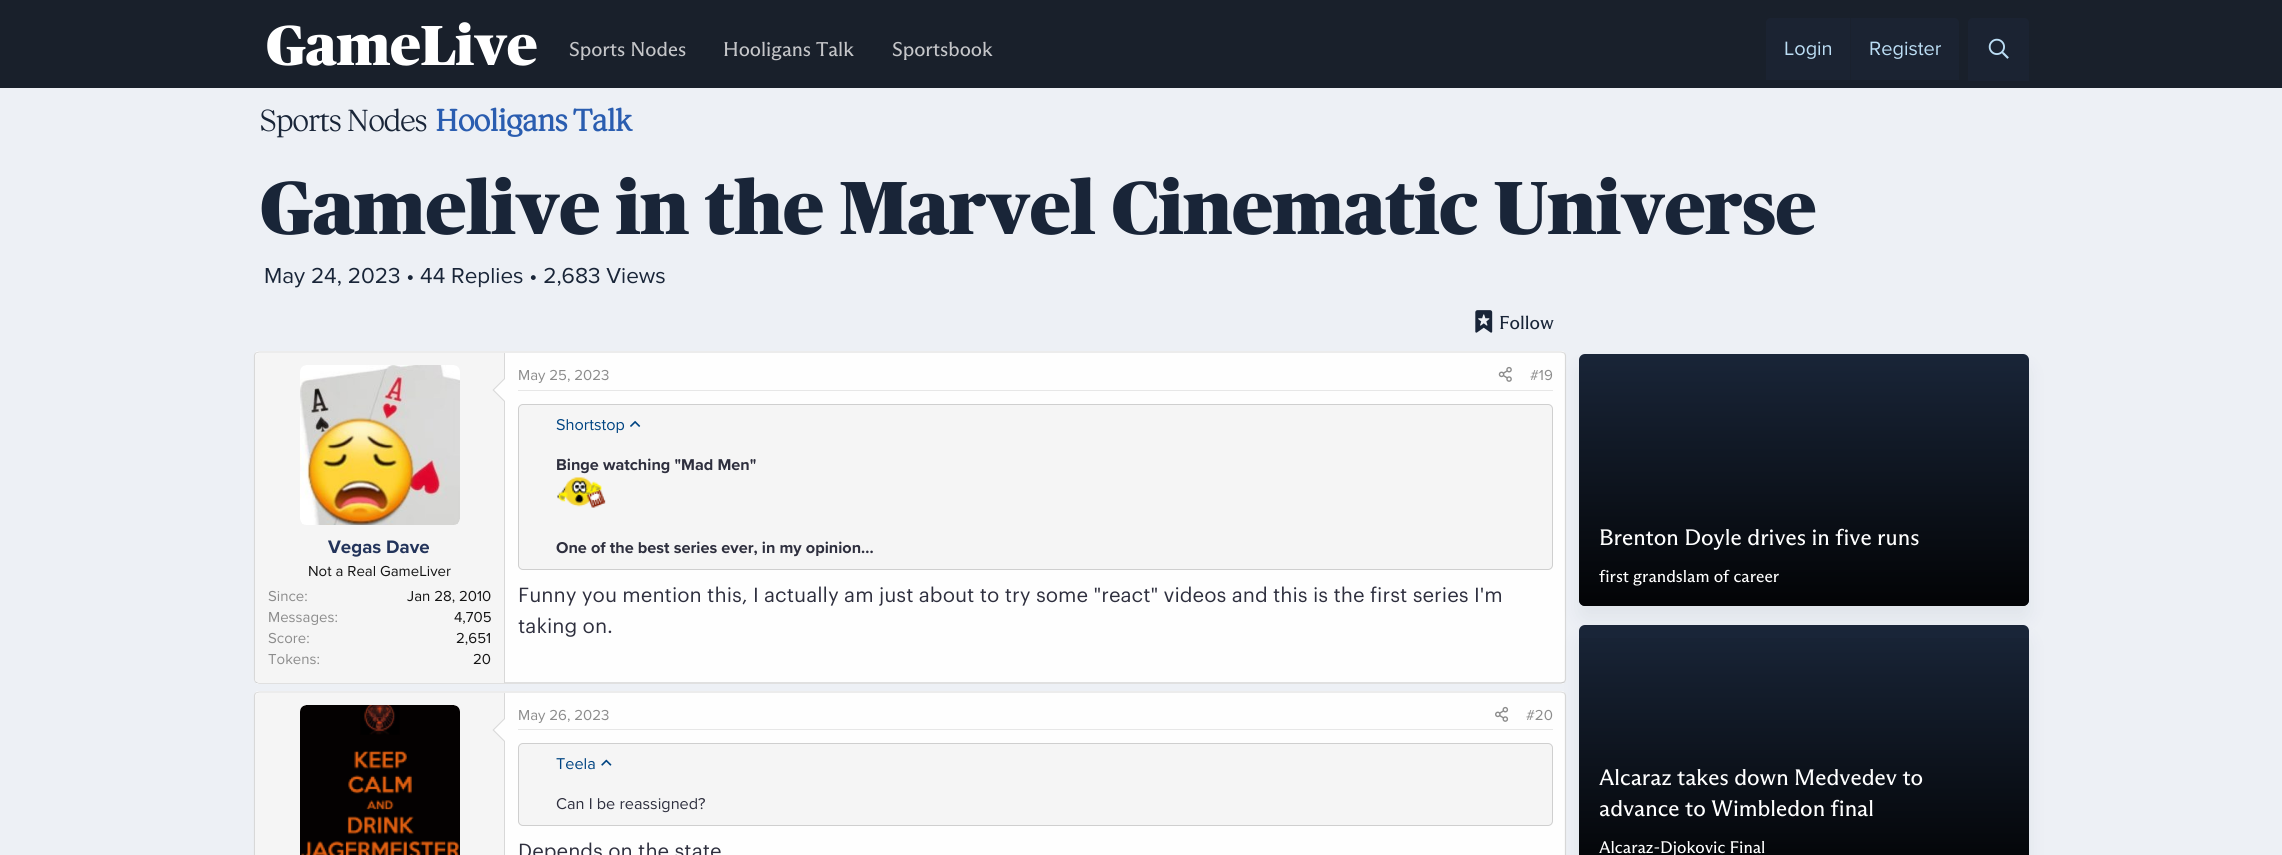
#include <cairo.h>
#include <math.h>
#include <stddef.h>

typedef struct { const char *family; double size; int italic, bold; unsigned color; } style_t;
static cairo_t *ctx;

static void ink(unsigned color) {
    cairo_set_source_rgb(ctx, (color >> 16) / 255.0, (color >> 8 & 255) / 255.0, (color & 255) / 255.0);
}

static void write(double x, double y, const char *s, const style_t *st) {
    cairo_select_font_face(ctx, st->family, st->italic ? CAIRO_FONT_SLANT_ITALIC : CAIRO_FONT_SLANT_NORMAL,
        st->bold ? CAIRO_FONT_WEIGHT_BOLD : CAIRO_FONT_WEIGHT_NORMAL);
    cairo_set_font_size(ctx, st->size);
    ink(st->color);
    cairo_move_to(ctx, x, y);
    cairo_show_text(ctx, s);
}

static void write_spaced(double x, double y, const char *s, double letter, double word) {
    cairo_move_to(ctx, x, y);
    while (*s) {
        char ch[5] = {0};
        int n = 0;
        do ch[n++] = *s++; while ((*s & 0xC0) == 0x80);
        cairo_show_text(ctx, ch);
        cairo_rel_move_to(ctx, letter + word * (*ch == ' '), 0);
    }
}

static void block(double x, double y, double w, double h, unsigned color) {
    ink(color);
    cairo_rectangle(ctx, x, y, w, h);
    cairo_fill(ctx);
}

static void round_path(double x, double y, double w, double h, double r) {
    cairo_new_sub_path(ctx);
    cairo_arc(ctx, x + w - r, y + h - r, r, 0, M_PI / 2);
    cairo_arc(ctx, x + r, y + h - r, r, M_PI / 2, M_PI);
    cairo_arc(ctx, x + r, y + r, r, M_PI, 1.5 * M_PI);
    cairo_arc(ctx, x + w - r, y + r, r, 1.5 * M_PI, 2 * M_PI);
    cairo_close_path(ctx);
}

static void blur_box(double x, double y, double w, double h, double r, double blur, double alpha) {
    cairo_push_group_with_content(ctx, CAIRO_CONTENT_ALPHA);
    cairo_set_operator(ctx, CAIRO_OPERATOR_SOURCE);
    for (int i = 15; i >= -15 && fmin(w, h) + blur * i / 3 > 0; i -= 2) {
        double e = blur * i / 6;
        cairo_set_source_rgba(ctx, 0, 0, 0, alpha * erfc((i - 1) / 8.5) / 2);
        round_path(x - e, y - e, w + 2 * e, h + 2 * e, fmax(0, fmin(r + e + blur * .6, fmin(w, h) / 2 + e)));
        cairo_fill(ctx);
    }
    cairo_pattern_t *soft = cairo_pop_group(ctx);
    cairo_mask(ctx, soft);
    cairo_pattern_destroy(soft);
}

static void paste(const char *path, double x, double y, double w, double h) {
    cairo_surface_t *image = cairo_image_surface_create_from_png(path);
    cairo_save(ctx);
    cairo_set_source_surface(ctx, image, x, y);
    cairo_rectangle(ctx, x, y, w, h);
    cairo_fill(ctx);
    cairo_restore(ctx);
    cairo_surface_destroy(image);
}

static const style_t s1 = {"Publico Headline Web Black", 56.25, 0, 0, 0xffffff};
static const style_t s2 = {"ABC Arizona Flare", 20, 0, 0, 0xc5c6c9};
static const style_t s3 = {"Proxima Nova", 20, 0, 0, 0xbcdef5};
static const style_t s4 = {"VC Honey", 32.5, 0, 1, 0x2a5db0};
static const style_t s5 = {"Publico Headline Web Black", 75, 0, 0, 0x192538};
static const style_t s6 = {"Proxima Nova", 22.5, 0, 0, 0x192538};
static const style_t s7 = {"ABC Arizona Flare", 18.75, 0, 0, 0x192538};
static const style_t s8 = {"Proxima Nova", 18.75, 0, 1, 0x23345b};
static const style_t s9 = {"Proxima Nova", 15, 0, 0, 0x141414};
static const style_t s10 = {"Proxima Nova", 15, 0, 0, 0x8c8c8c};
static const style_t s11 = {"Proxima Nova", 16.25, 0, 0, 0x004482};
static const style_t s12 = {"Proxima Nova", 16.25, 0, 1, 0x2e2f3e};
static const style_t s13 = {"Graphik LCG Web", 20, 0, 0, 0x2e2f3e};
static const style_t s14 = {"Proxima Nova", 16.25, 0, 0, 0x2e2f3e};
static const style_t s15 = {"ABC Arizona Flare", 22.5, 0, 0, 0xffffff};
static const style_t s16 = {"ABC Arizona Flare", 16.9, 0, 0, 0xffffff};

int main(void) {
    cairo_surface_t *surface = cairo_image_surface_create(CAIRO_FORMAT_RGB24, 2282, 855);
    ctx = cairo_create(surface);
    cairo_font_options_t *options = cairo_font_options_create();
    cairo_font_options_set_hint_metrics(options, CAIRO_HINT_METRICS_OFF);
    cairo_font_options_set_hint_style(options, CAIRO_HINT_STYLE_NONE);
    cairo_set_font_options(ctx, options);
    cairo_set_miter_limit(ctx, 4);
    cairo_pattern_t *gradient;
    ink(0xedf0f5);
    cairo_paint(ctx);
    block(0, 0, 2282, 88, 0x19202b);
    write(266, 65, "GameLive", &s1);
    write(569, 56, "Sports Nodes", &s2);
    write(723, 56, "Hooligans Talk", &s2);
    write(892, 56, "Sportsbook", &s2);
    ink(0x1b2332);
    cairo_new_path(ctx);
    cairo_move_to(ctx, 1771, 18);
    cairo_line_to(ctx, 1954, 18);
    cairo_curve_to(ctx, 1957, 18, 1959, 20, 1959, 23);
    cairo_line_to(ctx, 1959, 80);
    cairo_line_to(ctx, 1766, 80);
    cairo_line_to(ctx, 1766, 23);
    cairo_curve_to(ctx, 1766, 20, 1768, 18, 1771, 18);
    cairo_close_path(ctx);
    cairo_fill(ctx);
    write(1784, 55, "Login", &s3);
    block(1850, 18, 1, 62, 0x1a212e);
    write(1869, 55, "Register", &s3);
    ink(0x1b2332);
    cairo_new_path(ctx);
    cairo_move_to(ctx, 1973, 18);
    cairo_line_to(ctx, 2024, 18);
    cairo_curve_to(ctx, 2027, 18, 2029, 20, 2029, 23);
    cairo_line_to(ctx, 2029, 81);
    cairo_line_to(ctx, 1968, 81);
    cairo_line_to(ctx, 1968, 23);
    cairo_curve_to(ctx, 1968, 20, 1970, 18, 1973, 18);
    cairo_close_path(ctx);
    cairo_fill(ctx);
    paste("pic1.png", 1988, 38, 21, 21);
    cairo_select_font_face(ctx, "VC Honey", CAIRO_FONT_SLANT_NORMAL, CAIRO_FONT_WEIGHT_NORMAL);
    cairo_set_font_size(ctx, 32.5);
    ink(0x192538);
    write_spaced(260, 131, "Sports Nodes", -0.5, 0);
    write(435, 131, "Hooligans Talk", &s4);
    write(260, 234, "Gamelive in the Marvel Cinematic Universe", &s5);
    write(264, 283, "May 24, 2023 • 44 Replies • 2,683 Views", &s6);
    paste("pic2.png", 1475, 310, 18, 23);
    write(1499, 329, "Follow", &s7);
    ink(0xfefefe);
    round_path(254, 351, 1312, 333, 5);
    cairo_fill(ctx);
    cairo_new_path(ctx);
    cairo_move_to(ctx, 255.5, 353);
    cairo_line_to(ctx, 259, 352);
    cairo_line_to(ctx, 1561, 352);
    cairo_line_to(ctx, 1564.5, 353);
    ink(0xdfdfdf);
    cairo_set_line_width(ctx, 1.2);
    cairo_stroke(ctx);
    cairo_new_path(ctx);
    cairo_move_to(ctx, 1564.5, 353);
    cairo_curve_to(ctx, 1565, 354, 1565.5, 355, 1565.5, 356);
    cairo_line_to(ctx, 1565.5, 679);
    cairo_curve_to(ctx, 1565.5, 680, 1565, 681, 1564.5, 682);
    ink(0xd8d8d8);
    cairo_stroke(ctx);
    cairo_new_path(ctx);
    cairo_move_to(ctx, 1564.5, 682);
    cairo_line_to(ctx, 1561, 683);
    cairo_line_to(ctx, 259, 683);
    cairo_line_to(ctx, 255.5, 682);
    ink(0xcbcbcb);
    cairo_stroke(ctx);
    cairo_new_path(ctx);
    cairo_move_to(ctx, 255.5, 682);
    cairo_curve_to(ctx, 255, 681, 254.5, 680, 254.5, 679);
    cairo_line_to(ctx, 254.5, 356);
    cairo_curve_to(ctx, 254.5, 355, 255, 354, 255.5, 353);
    ink(0xd8d8d8);
    cairo_stroke(ctx);
    ink(0xf5f5f5);
    cairo_new_path(ctx);
    cairo_move_to(ctx, 259, 353);
    cairo_line_to(ctx, 505, 353);
    cairo_line_to(ctx, 505, 683);
    cairo_line_to(ctx, 259, 683);
    cairo_curve_to(ctx, 257, 683, 255, 681, 255, 679);
    cairo_line_to(ctx, 255, 357);
    cairo_curve_to(ctx, 255, 355, 257, 353, 259, 353);
    cairo_close_path(ctx);
    cairo_fill(ctx);
    block(504, 353, 1, 330, 0xd8d8d8);
    paste("pic3.png", 300, 365, 160, 160);
    cairo_new_path(ctx);
    cairo_move_to(ctx, 505, 377.5);
    cairo_line_to(ctx, 505, 402.5);
    cairo_line_to(ctx, 492.5, 390);
    cairo_close_path(ctx);
    cairo_fill(ctx);
    ink(0xfefefe);
    cairo_new_path(ctx);
    cairo_move_to(ctx, 505, 379);
    cairo_line_to(ctx, 505, 401);
    cairo_line_to(ctx, 494, 390);
    cairo_close_path(ctx);
    cairo_fill(ctx);
    write(328, 553, "Vegas Dave", &s8);
    write(308, 576, "Not a Real GameLiver", &s9);
    write(268, 601, "Since:", &s10);
    write(407, 601, "Jan 28, 2010", &s9);
    write(268, 622, "Messages:", &s10);
    write(454, 622, "4,705", &s9);
    write(268, 643, "Score:", &s10);
    write(456, 643, "2,651", &s9);
    write(268, 664, "Tokens:", &s10);
    write(473, 664, "20", &s9);
    block(518, 390, 1035, 1, 0xe7e7e7);
    write(518, 380, "May 25, 2023", &s10);
    paste("pic4.png", 1498, 366, 14, 16);
    write(1530, 380, "#19", &s10);
    ink(0xf5f5f5);
    round_path(518.5, 404.5, 1034, 165, 4.5);
    cairo_fill_preserve(ctx);
    ink(0xcfcfcf);
    cairo_set_line_width(ctx, 1);
    cairo_stroke(ctx);
    write(556, 430, "Shortstop", &s11);
    paste("pic5.png", 630, 420, 11, 7);
    write(556, 470, "Binge watching \"Mad Men\"", &s12);
    paste("pic6.png", 557, 477, 49, 31);
    write(556, 553, "One of the best series ever, in my opinion...", &s12);
    write(518, 602, "Funny you mention this, I actually am just about to try some \"react\" videos and this is the first series I'm", &s13);
    write(518, 633, "taking on.", &s13);
    ink(0xfefefe);
    round_path(254, 691, 1312, 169, 5);
    cairo_fill(ctx);
    cairo_new_path(ctx);
    cairo_move_to(ctx, 255.5, 693);
    cairo_line_to(ctx, 259, 692);
    cairo_line_to(ctx, 1561, 692);
    cairo_line_to(ctx, 1564.5, 693);
    ink(0xdfdfdf);
    cairo_set_line_width(ctx, 1.2);
    cairo_stroke(ctx);
    cairo_new_path(ctx);
    cairo_move_to(ctx, 1564.5, 693);
    cairo_curve_to(ctx, 1565, 694, 1565.5, 695, 1565.5, 696);
    cairo_line_to(ctx, 1565.5, 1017.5);
    cairo_curve_to(ctx, 1565.5, 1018.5, 1565, 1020, 1564.5, 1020.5);
    ink(0xd8d8d8);
    cairo_stroke(ctx);
    cairo_new_path(ctx);
    cairo_move_to(ctx, 255.5, 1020.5);
    cairo_curve_to(ctx, 255, 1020, 254.5, 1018.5, 254.5, 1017.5);
    cairo_line_to(ctx, 254.5, 696);
    cairo_curve_to(ctx, 254.5, 695, 255, 694, 255.5, 693);
    cairo_stroke(ctx);
    ink(0xf5f5f5);
    cairo_new_path(ctx);
    cairo_move_to(ctx, 259, 693);
    cairo_line_to(ctx, 505, 693);
    cairo_line_to(ctx, 505, 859);
    cairo_line_to(ctx, 259, 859);
    cairo_curve_to(ctx, 257, 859, 255, 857, 255, 855);
    cairo_line_to(ctx, 255, 697);
    cairo_curve_to(ctx, 255, 695, 257, 693, 259, 693);
    cairo_close_path(ctx);
    cairo_fill(ctx);
    block(504, 693, 1, 162, 0xd8d8d8);
    paste("pic7.png", 300, 705, 160, 150);
    cairo_new_path(ctx);
    cairo_move_to(ctx, 505, 717.5);
    cairo_line_to(ctx, 505, 742.5);
    cairo_line_to(ctx, 492.5, 730);
    cairo_close_path(ctx);
    cairo_fill(ctx);
    ink(0xfefefe);
    cairo_new_path(ctx);
    cairo_move_to(ctx, 505, 719);
    cairo_line_to(ctx, 505, 741);
    cairo_line_to(ctx, 494, 730);
    cairo_close_path(ctx);
    cairo_fill(ctx);
    block(518, 729, 1035, 1, 0xe7e7e7);
    write(518, 720, "May 26, 2023", &s10);
    paste("pic8.png", 1495, 706, 14, 16);
    write(1526, 720, "#20", &s10);
    ink(0xf5f5f5);
    round_path(518.5, 743.5, 1034, 82, 4.5);
    cairo_fill_preserve(ctx);
    ink(0xcfcfcf);
    cairo_set_line_width(ctx, 1);
    cairo_stroke(ctx);
    write(556, 769, "Teela", &s11);
    paste("pic9.png", 601, 759, 11, 7);
    write(556, 809, "Can I be reassigned?", &s14);
    write(518, 858, "Depends on the state", &s13);
    ink(0x0a1f44);
    blur_box(1579, 366, 450, 253, 6, 10, 0.06);
    ink(0x192538);
    round_path(1579, 354, 450, 252, 6);
    cairo_fill(ctx);
    gradient = cairo_pattern_create_linear(1804, 354, 1804, 606);
    cairo_pattern_add_color_stop_rgba(gradient, 0, 0, 0, 0, 0);
    cairo_pattern_add_color_stop_rgba(gradient, 1, 0, 0, 0, 0.9);
    cairo_set_source(ctx, gradient);
    cairo_pattern_destroy(gradient);
    round_path(1579, 354, 450, 252, 6);
    cairo_fill(ctx);
    write(1599, 545, "Brenton Doyle drives in five runs", &s15);
    write(1599, 582, "first grandslam of career", &s16);
    ink(0x0a1f44);
    blur_box(1579, 638, 450, 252, 6, 10, 0.06);
    ink(0x192538);
    round_path(1579, 625, 450, 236, 6);
    cairo_fill(ctx);
    gradient = cairo_pattern_create_linear(1804, 625, 1804, 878);
    cairo_pattern_add_color_stop_rgba(gradient, 0, 0, 0, 0, 0);
    cairo_pattern_add_color_stop_rgba(gradient, 1, 0, 0, 0, 0.9);
    cairo_set_source(ctx, gradient);
    cairo_pattern_destroy(gradient);
    cairo_rectangle(ctx, 1579, 638, 450, 217);
    cairo_fill(ctx);
    write(1599, 785, "Alcaraz takes down Medvedev to", &s15);
    write(1599, 816, "advance to Wimbledon final", &s15);
    write(1599, 853, "Alcaraz-Djokovic Final", &s16);
    cairo_surface_write_to_png(surface, "screenshot.png");
    cairo_font_options_destroy(options);
    cairo_destroy(ctx);
    cairo_surface_destroy(surface);
    return 0;
}
